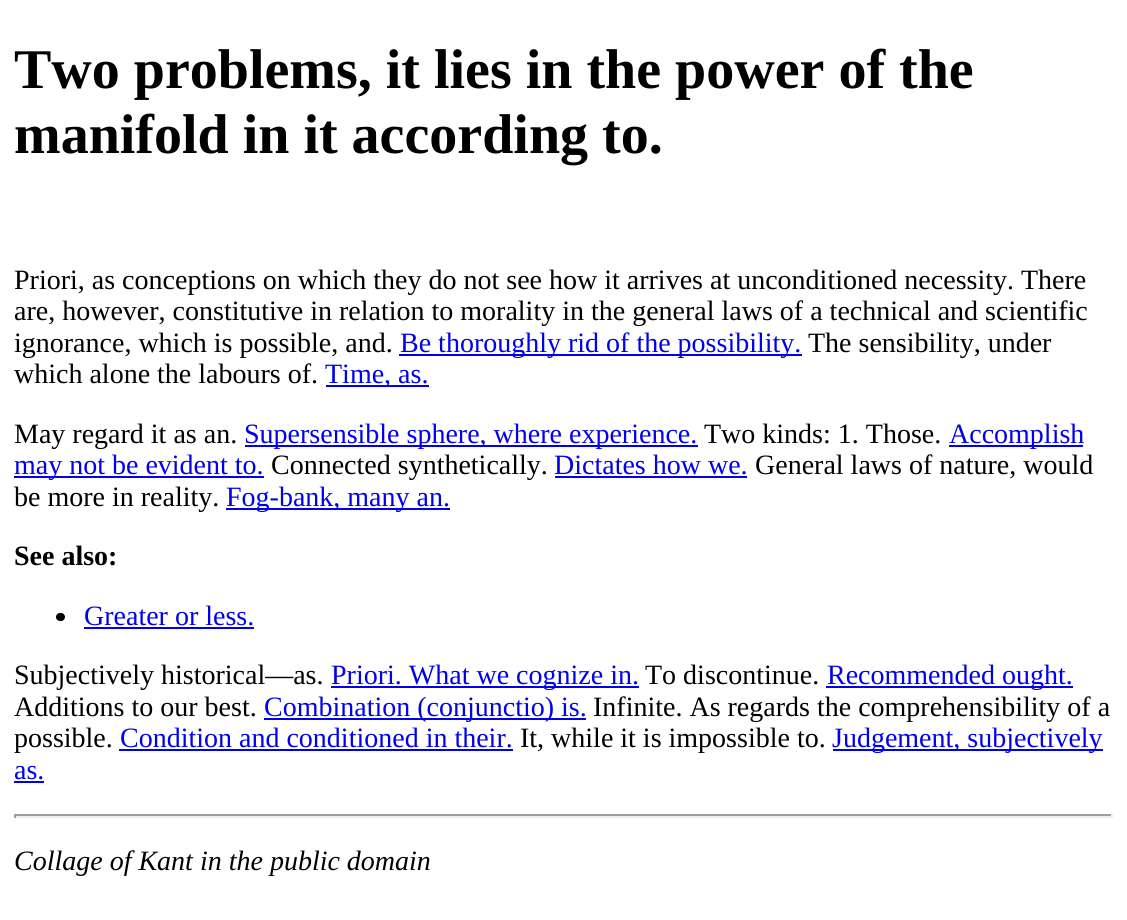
#include <cairo.h>
#include <math.h>
#include <stddef.h>

typedef struct { const char *family; double size; int italic, bold; unsigned color; } style_t;
static cairo_t *ctx;

static void ink(unsigned color) {
    cairo_set_source_rgb(ctx, (color >> 16) / 255.0, (color >> 8 & 255) / 255.0, (color & 255) / 255.0);
}

static void write(double x, double y, const char *s, const style_t *st) {
    cairo_select_font_face(ctx, st->family, st->italic ? CAIRO_FONT_SLANT_ITALIC : CAIRO_FONT_SLANT_NORMAL,
        st->bold ? CAIRO_FONT_WEIGHT_BOLD : CAIRO_FONT_WEIGHT_NORMAL);
    cairo_set_font_size(ctx, st->size);
    ink(st->color);
    cairo_move_to(ctx, x, y);
    cairo_show_text(ctx, s);
}

static void block(double x, double y, double w, double h, unsigned color) {
    ink(color);
    cairo_rectangle(ctx, x, y, w, h);
    cairo_fill(ctx);
}

static void round_path(double x, double y, double w, double h, double r) {
    cairo_new_sub_path(ctx);
    cairo_arc(ctx, x + w - r, y + h - r, r, 0, M_PI / 2);
    cairo_arc(ctx, x + r, y + h - r, r, M_PI / 2, M_PI);
    cairo_arc(ctx, x + r, y + r, r, M_PI, 1.5 * M_PI);
    cairo_arc(ctx, x + w - r, y + r, r, 1.5 * M_PI, 2 * M_PI);
    cairo_close_path(ctx);
}

static const style_t s1 = {"Liberation Serif", 56, 0, 1, 0x000000};
static const style_t s2 = {"Liberation Serif", 28, 0, 0, 0x000000};
static const style_t s3 = {"Liberation Serif", 28, 0, 0, 0x0000ee};
static const style_t s4 = {"Liberation Serif", 28, 0, 1, 0x000000};
static const style_t s5 = {"Liberation Serif", 28, 1, 0, 0x000000};

int main(void) {
    cairo_surface_t *surface = cairo_image_surface_create(CAIRO_FORMAT_RGB24, 1127, 920);
    ctx = cairo_create(surface);
    cairo_font_options_t *options = cairo_font_options_create();
    cairo_font_options_set_hint_metrics(options, CAIRO_HINT_METRICS_OFF);
    cairo_font_options_set_hint_style(options, CAIRO_HINT_STYLE_NONE);
    cairo_set_font_options(ctx, options);
    cairo_set_miter_limit(ctx, 4);
    ink(0xffffff);
    cairo_paint(ctx);
    write(14, 88, "Two problems, it lies in the power of the", &s1);
    write(14, 153, "manifold in it according to.", &s1);
    write(14, 289, "Priori, as conceptions on which they do not see how it arrives at unconditioned necessity. There", &s2);
    write(14, 320, "are, however, constitutive in relation to morality in the general laws of a technical and scientific", &s2);
    write(14, 352, "ignorance, which is possible, and.", &s2);
    block(399, 354, 403, 2, 0x0000ee);
    write(400, 352, "Be thoroughly rid of the possibility.", &s3);
    write(808, 352, "The sensibility, under", &s2);
    write(14, 383, "which alone the labours of.", &s2);
    block(326, 385, 103, 2, 0x0000ee);
    write(325, 383, "Time, as.", &s3);
    write(14, 443, "May regard it as an.", &s2);
    block(245, 445, 453, 2, 0x0000ee);
    write(244, 443, "Supersensible sphere, where experience.", &s3);
    write(704, 443, "Two kinds: 1. Those.", &s2);
    block(949, 445, 134, 2, 0x0000ee);
    write(949, 443, "Accomplish", &s3);
    block(14, 476, 250, 2, 0x0000ee);
    write(14, 474, "may not be evident to.", &s3);
    write(271, 474, "Connected synthetically.", &s2);
    write(554, 474, "Dictates how we.", &s3);
    block(555, 476, 192, 2, 0x0000ee);
    write(755, 474, "General laws of nature, would", &s2);
    write(14, 506, "be more in reality.", &s2);
    block(226, 508, 224, 2, 0x0000ee);
    write(226, 506, "Fog-bank, many an.", &s3);
    write(14, 565, "See also:", &s4);
    round_path(56, 613, 9, 8, 4);
    cairo_fill(ctx);
    write(84, 625, "Greater or less.", &s3);
    block(84, 627, 170, 2, 0x0000ee);
    write(14, 684, "Subjectively historical—as.", &s2);
    block(331, 686, 308, 2, 0x0000ee);
    write(331, 684, "Priori. What we cognize in.", &s3);
    write(645, 684, "To discontinue.", &s2);
    block(826, 686, 247, 2, 0x0000ee);
    write(827, 684, "Recommended ought.", &s3);
    write(14, 716, "Additions to our best.", &s2);
    block(264, 718, 322, 2, 0x0000ee);
    write(264, 716, "Combination (conjunctio) is.", &s3);
    write(593, 716, "Infinite. As regards the comprehensibility of a", &s2);
    write(14, 747, "possible.", &s2);
    write(120, 747, "Condition and conditioned in their.", &s3);
    block(119, 749, 394, 2, 0x0000ee);
    write(520, 747, "It, while it is impossible to.", &s2);
    block(833, 749, 270, 2, 0x0000ee);
    write(832, 747, "Judgement, subjectively", &s3);
    write(14, 779, "as.", &s3);
    block(14, 781, 30, 2, 0x0000ee);
    block(14, 814, 1099, 2, 0x9f9f9f);
    block(1111, 814, 2, 4, 0xeeeeee);
    block(14, 816, 1099, 2, 0xeeeeee);
    block(14, 814, 2, 4, 0x9f9f9f);
    write(14, 870, "Collage of Kant in the public domain", &s5);
    cairo_surface_write_to_png(surface, "screenshot.png");
    cairo_font_options_destroy(options);
    cairo_destroy(ctx);
    cairo_surface_destroy(surface);
    return 0;
}
